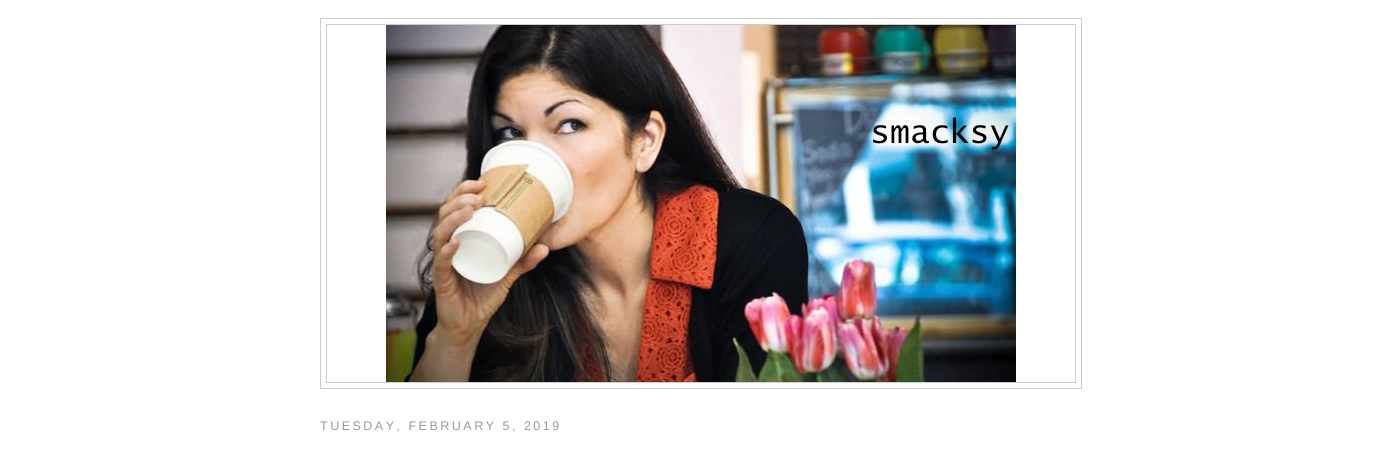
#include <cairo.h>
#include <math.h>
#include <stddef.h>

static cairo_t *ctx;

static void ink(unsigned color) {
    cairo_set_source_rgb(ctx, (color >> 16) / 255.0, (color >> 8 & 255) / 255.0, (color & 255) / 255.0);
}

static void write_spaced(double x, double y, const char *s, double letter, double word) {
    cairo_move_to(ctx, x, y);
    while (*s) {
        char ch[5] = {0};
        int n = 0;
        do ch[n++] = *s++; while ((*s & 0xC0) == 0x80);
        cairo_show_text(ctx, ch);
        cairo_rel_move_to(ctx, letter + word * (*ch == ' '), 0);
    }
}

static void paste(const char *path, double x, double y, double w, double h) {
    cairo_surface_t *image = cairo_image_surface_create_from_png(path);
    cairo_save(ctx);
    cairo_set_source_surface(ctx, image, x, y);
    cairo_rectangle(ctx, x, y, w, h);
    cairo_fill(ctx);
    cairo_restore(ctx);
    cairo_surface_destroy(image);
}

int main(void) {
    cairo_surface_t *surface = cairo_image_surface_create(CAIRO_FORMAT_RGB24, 1399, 451);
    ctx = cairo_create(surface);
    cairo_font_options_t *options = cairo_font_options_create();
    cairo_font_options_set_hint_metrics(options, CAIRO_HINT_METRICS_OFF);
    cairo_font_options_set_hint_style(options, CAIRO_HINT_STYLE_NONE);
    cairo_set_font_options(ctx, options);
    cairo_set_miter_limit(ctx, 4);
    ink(0xffffff);
    cairo_paint(ctx);
    cairo_rectangle(ctx, 320.5, 18.5, 761, 370);
    ink(0xcccccc);
    cairo_set_line_width(ctx, 1);
    cairo_stroke(ctx);
    cairo_rectangle(ctx, 326.5, 24.5, 749, 358);
    cairo_stroke(ctx);
    paste("pic1.png", 386, 25, 630, 357);
    cairo_select_font_face(ctx, "Liberation Sans", CAIRO_FONT_SLANT_NORMAL, CAIRO_FONT_WEIGHT_NORMAL);
    cairo_set_font_size(ctx, 12.5);
    ink(0x999999);
    write_spaced(320, 430, "TUESDAY, FEBRUARY 5, 2019", 2.5, 0);
    cairo_surface_write_to_png(surface, "screenshot.png");
    cairo_font_options_destroy(options);
    cairo_destroy(ctx);
    cairo_surface_destroy(surface);
    return 0;
}
